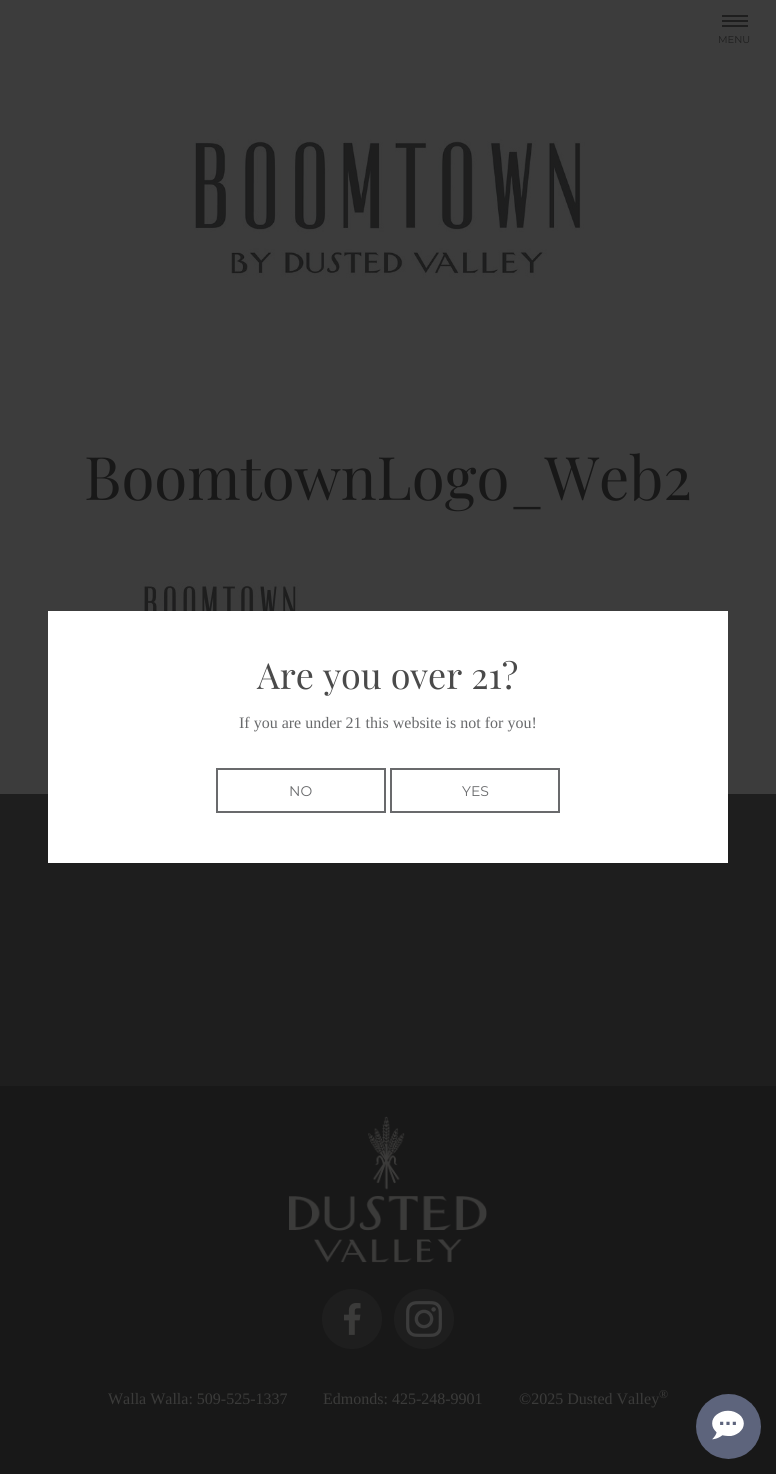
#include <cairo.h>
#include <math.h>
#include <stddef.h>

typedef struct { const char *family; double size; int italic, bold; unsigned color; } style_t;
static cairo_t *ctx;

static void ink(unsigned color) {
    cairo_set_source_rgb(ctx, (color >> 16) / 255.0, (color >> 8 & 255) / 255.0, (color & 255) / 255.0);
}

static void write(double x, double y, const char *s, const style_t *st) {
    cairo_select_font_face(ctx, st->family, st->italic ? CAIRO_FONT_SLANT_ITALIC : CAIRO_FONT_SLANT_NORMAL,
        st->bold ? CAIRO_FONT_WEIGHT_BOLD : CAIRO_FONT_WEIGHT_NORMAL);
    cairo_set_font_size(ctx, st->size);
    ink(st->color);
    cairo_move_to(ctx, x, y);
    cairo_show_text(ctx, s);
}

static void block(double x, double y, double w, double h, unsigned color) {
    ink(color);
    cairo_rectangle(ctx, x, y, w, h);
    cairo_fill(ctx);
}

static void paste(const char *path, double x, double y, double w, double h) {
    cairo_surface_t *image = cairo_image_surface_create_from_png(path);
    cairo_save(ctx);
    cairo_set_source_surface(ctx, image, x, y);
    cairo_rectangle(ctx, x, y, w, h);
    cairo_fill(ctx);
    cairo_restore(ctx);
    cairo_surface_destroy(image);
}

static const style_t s1 = {"Montserrat Thin", 10, 0, 0, 0x1e1e1e};
static const style_t s2 = {"Playfair Display", 60, 0, 0, 0x181818};
static const style_t s3 = {"Liberation Serif", 16, 0, 0, 0x3b3b3a};
static const style_t s4 = {"Liberation Serif", 12, 0, 0, 0x3b3b3a};
static const style_t s5 = {"Playfair Display", 36, 0, 0, 0x4a4a4a};
static const style_t s6 = {"Liberation Serif", 16, 0, 0, 0x696a6c};
static const style_t s7 = {"Montserrat Thin", 14, 0, 0, 0x696a6c};

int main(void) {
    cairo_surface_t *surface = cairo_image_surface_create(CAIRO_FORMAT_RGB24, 776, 1474);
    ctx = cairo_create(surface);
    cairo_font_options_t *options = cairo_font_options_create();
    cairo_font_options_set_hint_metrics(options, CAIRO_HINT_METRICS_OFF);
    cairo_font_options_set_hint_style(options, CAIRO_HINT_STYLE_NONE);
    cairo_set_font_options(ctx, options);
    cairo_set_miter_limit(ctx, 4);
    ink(0xffffff);
    cairo_paint(ctx);
    block(0, 0, 776, 60, 0x3c3c3c);
    block(722, 15, 26, 2, 0x1e1e1e);
    block(722, 20, 26, 2, 0x1e1e1e);
    block(722, 25, 26, 2, 0x1e1e1e);
    write(718, 43, "MENU", &s1);
    paste("pic1.png", 0, 60, 776, 306);
    block(0, 366, 776, 428, 0x3c3c3c);
    write(84, 500, "BoomtownLogo_Web2", &s2);
    paste("pic2.png", 140, 582, 160, 29);
    block(0, 1086, 776, 388, 0x181818);
    block(0, 794, 776, 292, 0x1e1e1e);
    paste("pic3.png", 289, 1116, 198, 147);
    cairo_arc(ctx, 352, 1319, 30, 0, 2 * M_PI);
    cairo_fill(ctx);
    paste("pic4.png", 344, 1303, 17, 32);
    cairo_arc(ctx, 424, 1319, 30, 0, 2 * M_PI);
    cairo_fill(ctx);
    paste("pic5.png", 406, 1301, 36, 36);
    write(108, 1404, "Walla Walla: 509-525-1337", &s3);
    write(323, 1404, "Edmonds: 425-248-9901", &s3);
    write(519, 1404, "©2025 Dusted Valley", &s3);
    write(659, 1398, "®", &s4);
    block(48, 611, 680, 252, 0xffffff);
    write(257, 689, "Are you over 21?", &s5);
    write(239, 728, "If you are under 21 this website is not for you!", &s6);
    cairo_rectangle(ctx, 217, 769, 168, 43);
    cairo_stroke(ctx);
    write(289, 796, "NO", &s7);
    cairo_rectangle(ctx, 391, 769, 168, 43);
    cairo_stroke(ctx);
    write(462, 796, "YES", &s7);
    paste("pic6.png", 696, 1394, 65, 65);
    cairo_surface_write_to_png(surface, "screenshot.png");
    cairo_font_options_destroy(options);
    cairo_destroy(ctx);
    cairo_surface_destroy(surface);
    return 0;
}
